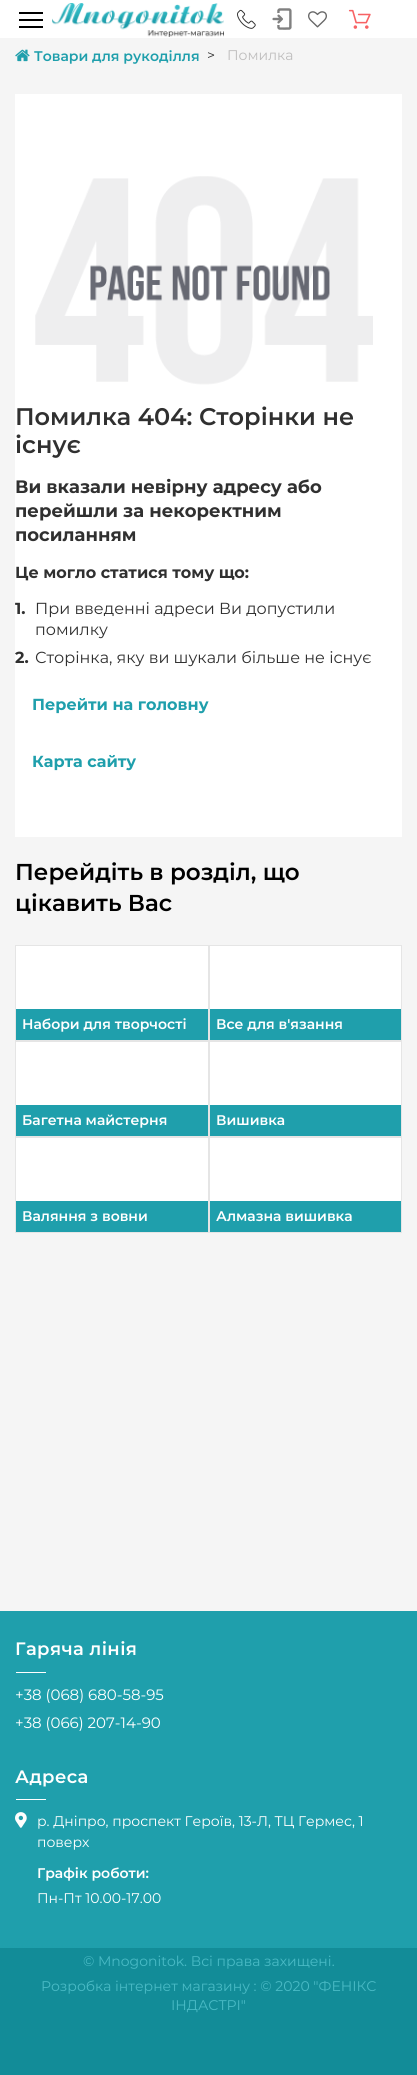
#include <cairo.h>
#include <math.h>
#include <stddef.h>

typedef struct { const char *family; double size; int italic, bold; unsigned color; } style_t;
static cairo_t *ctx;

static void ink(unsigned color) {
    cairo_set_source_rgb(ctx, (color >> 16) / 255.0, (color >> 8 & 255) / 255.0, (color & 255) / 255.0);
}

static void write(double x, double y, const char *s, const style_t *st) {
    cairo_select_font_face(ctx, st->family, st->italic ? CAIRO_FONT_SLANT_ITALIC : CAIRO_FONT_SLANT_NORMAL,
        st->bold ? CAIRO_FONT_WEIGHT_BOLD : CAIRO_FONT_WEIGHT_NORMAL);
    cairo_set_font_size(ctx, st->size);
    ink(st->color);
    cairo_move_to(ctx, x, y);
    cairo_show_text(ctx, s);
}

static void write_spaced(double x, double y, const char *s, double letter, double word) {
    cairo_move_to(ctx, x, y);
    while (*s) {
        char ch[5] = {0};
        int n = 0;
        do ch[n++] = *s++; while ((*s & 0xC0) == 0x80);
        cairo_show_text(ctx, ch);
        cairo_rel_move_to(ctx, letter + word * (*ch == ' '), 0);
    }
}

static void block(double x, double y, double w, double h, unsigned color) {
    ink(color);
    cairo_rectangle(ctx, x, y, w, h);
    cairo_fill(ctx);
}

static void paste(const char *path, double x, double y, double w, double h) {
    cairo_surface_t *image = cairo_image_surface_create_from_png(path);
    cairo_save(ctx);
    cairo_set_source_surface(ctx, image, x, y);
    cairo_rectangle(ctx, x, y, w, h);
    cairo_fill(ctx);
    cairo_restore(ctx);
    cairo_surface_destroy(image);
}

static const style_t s1 = {"Montserrat SemiBold", 14, 0, 0, 0x1f9fac};
static const style_t s2 = {"Montserrat", 14, 0, 0, 0x303030};
static const style_t s3 = {"Montserrat", 14, 0, 0, 0xbebdbd};
static const style_t s4 = {"Montserrat SemiBold", 24, 0, 0, 0x303030};
static const style_t s5 = {"Montserrat", 18, 0, 1, 0x303030};
static const style_t s6 = {"Montserrat", 16, 0, 1, 0x303030};
static const style_t s7 = {"Montserrat", 16, 0, 0, 0x303030};
static const style_t s8 = {"Montserrat", 16, 0, 1, 0x1f9fac};
static const style_t s9 = {"Montserrat SemiBold", 23, 0, 0, 0x000000};
static const style_t s10 = {"Montserrat SemiBold", 14, 0, 0, 0xffffff};
static const style_t s11 = {"Montserrat", 15, 0, 0, 0xffffff};
static const style_t s12 = {"Montserrat", 14, 0, 0, 0xffffff};
static const style_t s13 = {"Montserrat", 14, 0, 0, 0x49bac5};

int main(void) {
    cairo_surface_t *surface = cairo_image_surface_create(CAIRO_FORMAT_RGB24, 417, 2075);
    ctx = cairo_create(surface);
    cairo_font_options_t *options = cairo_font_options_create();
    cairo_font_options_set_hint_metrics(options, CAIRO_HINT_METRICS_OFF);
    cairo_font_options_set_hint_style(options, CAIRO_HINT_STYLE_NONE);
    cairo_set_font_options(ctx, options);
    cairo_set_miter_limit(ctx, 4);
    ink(0xf5f5f5);
    cairo_paint(ctx);
    block(0, 0, 417, 38, 0xffffff);
    block(19, 12, 24, 2, 0x000000);
    block(19, 19, 24, 2, 0x000000);
    block(19, 26, 24, 2, 0x000000);
    paste("pic1.png", 52, 3, 172, 34);
    paste("pic2.png", 237, 9, 19, 20);
    paste("pic3.png", 272, 8, 20, 22);
    paste("pic4.png", 308, 11, 19, 17);
    paste("pic5.png", 348, 9, 23, 20);
    paste("pic6.png", 15, 49, 15, 13);
    write(34, 61, "Товари для рукоділля", &s1);
    write(207, 60, ">", &s2);
    write(227, 60, "Помилка", &s3);
    block(15, 94, 387, 743, 0xffffff);
    paste("pic7.png", 35, 176, 338, 209);
    write(15, 425, "Помилка 404: Сторінки не", &s4);
    write(15, 453, "існує", &s4);
    write(15, 493, "Ви вказали невірну адресу або", &s5);
    write(15, 517, "перейшли за некоректним", &s5);
    write(15, 541, "посиланням", &s5);
    write(15, 578, "Це могло статися тому що:", &s6);
    write(15, 614, "1.", &s6);
    write(35, 614, "При введенні адреси Ви допустили", &s7);
    write(35, 635, "помилку", &s7);
    write(15, 663, "2.", &s6);
    write(35, 663, "Сторінка, яку ви шукали більше не існує", &s7);
    write(32, 710, "Перейти на головну", &s8);
    write(32, 767, "Карта сайту", &s8);
    write(15, 880, "Перейдіть в розділ, що", &s9);
    write(15, 911, "цікавить Вас", &s9);
    block(16, 946, 192, 63, 0xffffff);
    cairo_rectangle(ctx, 15.5, 945.5, 193, 95);
    ink(0xe5e5e5);
    cairo_set_line_width(ctx, 1);
    cairo_stroke(ctx);
    block(16, 1009, 192, 31, 0x1f9fac);
    write(22, 1029, "Набори для творчості", &s10);
    block(210, 946, 191, 63, 0xffffff);
    cairo_rectangle(ctx, 209.5, 945.5, 192, 95);
    ink(0xe5e5e5);
    cairo_stroke(ctx);
    block(210, 1009, 191, 31, 0x1f9fac);
    write(216, 1029, "Все для в'язання", &s10);
    block(16, 1042, 192, 63, 0xffffff);
    cairo_rectangle(ctx, 15.5, 1041.5, 193, 95);
    ink(0xe5e5e5);
    cairo_stroke(ctx);
    block(16, 1105, 192, 31, 0x1f9fac);
    write(22, 1125, "Багетна майстерня", &s10);
    block(210, 1042, 191, 63, 0xffffff);
    cairo_rectangle(ctx, 209.5, 1041.5, 192, 95);
    ink(0xe5e5e5);
    cairo_stroke(ctx);
    block(210, 1105, 191, 31, 0x1f9fac);
    write(216, 1125, "Вишивка", &s10);
    block(16, 1138, 192, 63, 0xffffff);
    cairo_rectangle(ctx, 15.5, 1137.5, 193, 95);
    ink(0xe5e5e5);
    cairo_stroke(ctx);
    block(16, 1201, 192, 31, 0x1f9fac);
    write(22, 1221, "Валяння з вовни", &s10);
    block(210, 1138, 191, 63, 0xffffff);
    cairo_rectangle(ctx, 209.5, 1137.5, 192, 95);
    ink(0xe5e5e5);
    cairo_stroke(ctx);
    block(210, 1201, 191, 31, 0x1f9fac);
    write(216, 1221, "Алмазна вишивка", &s10);
    block(0, 1611, 417, 337, 0x1f9fac);
    cairo_set_font_size(ctx, 18);
    ink(0xffffff);
    write_spaced(15, 1655, "Гаряча лінія", 0.4, 0);
    block(16, 1672, 30, 1, 0xffffff);
    write(15, 1700, "+38 (068) 680-58-95", &s11);
    write(15, 1728, "+38 (066) 207-14-90", &s11);
    cairo_select_font_face(ctx, "Montserrat SemiBold", CAIRO_FONT_SLANT_NORMAL, CAIRO_FONT_WEIGHT_NORMAL);
    cairo_set_font_size(ctx, 18);
    write_spaced(15, 1783, "Адреса", 0.4, 0);
    block(16, 1799, 30, 1, 0xffffff);
    paste("pic8.png", 15, 1812, 12, 16);
    write(37, 1826, "р. Дніпро, проспект Героїв, 13-Л, ТЦ Гермес, 1", &s12);
    write(37, 1847, "поверх", &s12);
    write(37, 1878, "Графік роботи:", &s10);
    write(37, 1903, "Пн-Пт 10.00-17.00", &s12);
    block(0, 1948, 417, 127, 0x128c98);
    write(83, 1966, "© Mnogonitok. Всі права захищені.", &s13);
    write(41, 1991, "Розробка інтернет магазину : © 2020 \"ФЕНІКС", &s13);
    write(171, 2010, "ІНДАСТРІ\"", &s13);
    cairo_surface_write_to_png(surface, "screenshot.png");
    cairo_font_options_destroy(options);
    cairo_destroy(ctx);
    cairo_surface_destroy(surface);
    return 0;
}
